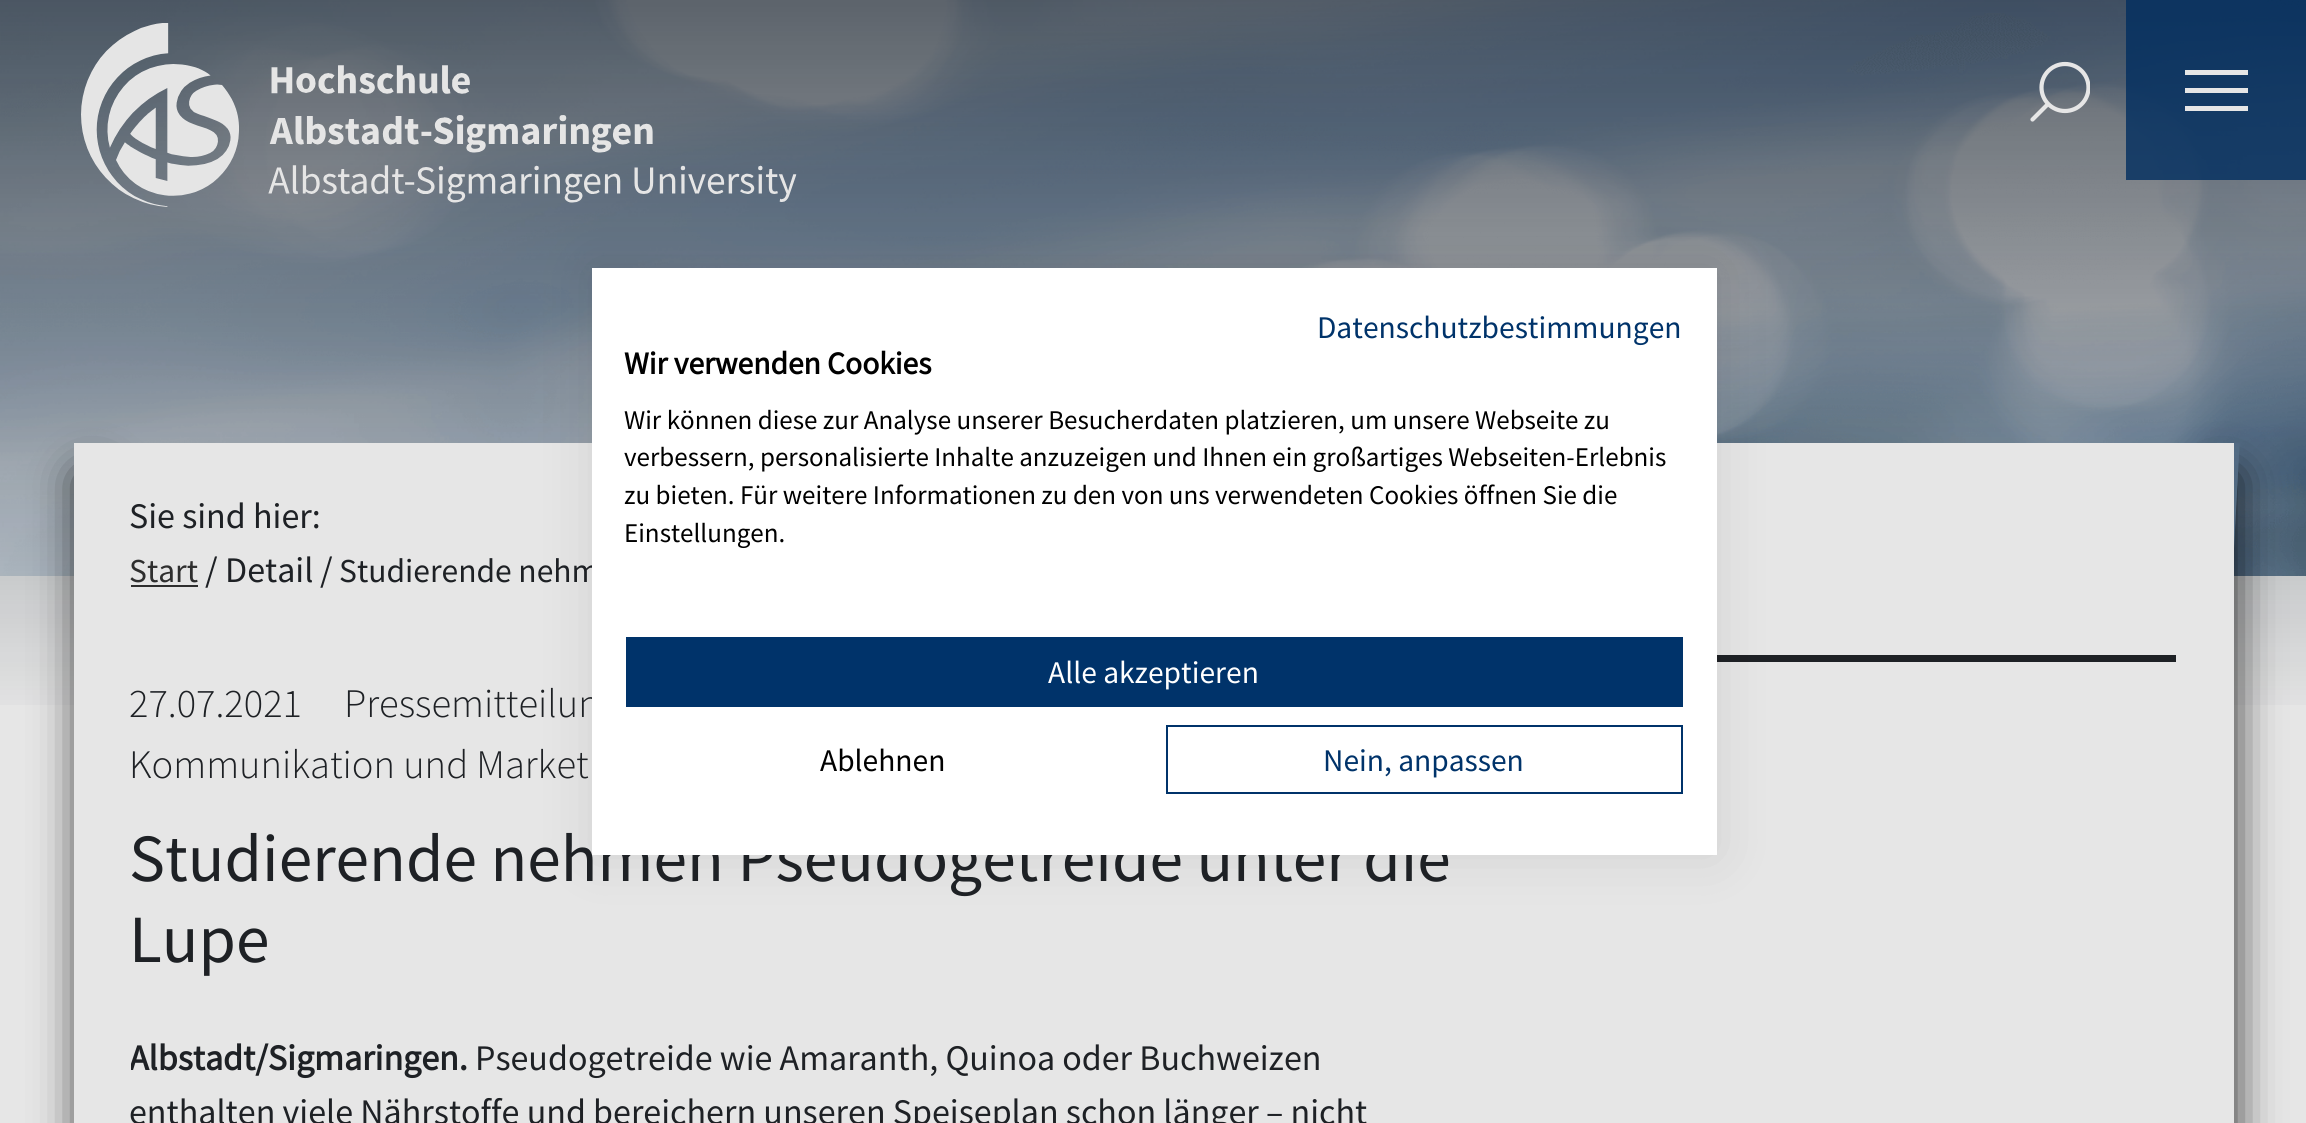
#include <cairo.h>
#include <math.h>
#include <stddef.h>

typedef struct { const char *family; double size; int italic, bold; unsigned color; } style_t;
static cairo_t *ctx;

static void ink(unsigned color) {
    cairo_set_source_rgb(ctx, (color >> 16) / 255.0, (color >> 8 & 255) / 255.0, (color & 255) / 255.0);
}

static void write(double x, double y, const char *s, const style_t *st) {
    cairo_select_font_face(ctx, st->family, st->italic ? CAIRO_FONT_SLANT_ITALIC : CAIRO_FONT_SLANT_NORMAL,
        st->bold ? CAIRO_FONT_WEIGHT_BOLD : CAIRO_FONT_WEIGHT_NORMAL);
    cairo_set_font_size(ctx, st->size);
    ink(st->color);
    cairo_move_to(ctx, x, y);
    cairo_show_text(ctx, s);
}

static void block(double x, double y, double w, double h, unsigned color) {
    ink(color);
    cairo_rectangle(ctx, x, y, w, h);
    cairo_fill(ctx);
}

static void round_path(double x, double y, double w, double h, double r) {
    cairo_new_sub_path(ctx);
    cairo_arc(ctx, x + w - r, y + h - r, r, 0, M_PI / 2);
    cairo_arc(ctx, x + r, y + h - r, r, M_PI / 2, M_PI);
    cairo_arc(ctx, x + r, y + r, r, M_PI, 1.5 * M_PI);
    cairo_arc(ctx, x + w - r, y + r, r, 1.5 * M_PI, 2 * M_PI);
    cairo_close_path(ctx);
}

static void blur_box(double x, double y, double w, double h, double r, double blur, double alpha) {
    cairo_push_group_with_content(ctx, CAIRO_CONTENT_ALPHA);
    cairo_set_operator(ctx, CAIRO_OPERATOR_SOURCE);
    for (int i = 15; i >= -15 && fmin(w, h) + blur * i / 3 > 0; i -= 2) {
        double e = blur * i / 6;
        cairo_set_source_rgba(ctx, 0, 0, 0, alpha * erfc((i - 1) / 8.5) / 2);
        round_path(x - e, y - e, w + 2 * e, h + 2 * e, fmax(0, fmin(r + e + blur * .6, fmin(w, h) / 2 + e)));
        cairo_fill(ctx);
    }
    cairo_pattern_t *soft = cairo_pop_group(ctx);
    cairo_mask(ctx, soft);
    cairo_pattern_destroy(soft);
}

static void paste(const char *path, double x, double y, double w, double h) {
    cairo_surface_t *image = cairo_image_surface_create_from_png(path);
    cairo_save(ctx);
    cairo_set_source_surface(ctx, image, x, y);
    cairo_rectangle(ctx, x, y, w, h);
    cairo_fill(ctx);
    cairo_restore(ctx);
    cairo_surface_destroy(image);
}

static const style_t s1 = {"Source Sans Pro", 33.5, 0, 0, 0x1e2125};
static const style_t s2 = {"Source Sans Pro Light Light", 40.5, 0, 0, 0x1e2125};
static const style_t s3 = {"Source Sans Pro", 67.5, 0, 0, 0x1e2125};
static const style_t s4 = {"Source Sans Pro", 31.5, 0, 0, 0x00336a};
static const style_t s5 = {"Source Sans Pro", 31.5, 0, 1, 0x000000};
static const style_t s6 = {"Source Sans Pro", 27, 0, 0, 0x000000};
static const style_t s7 = {"Source Sans Pro", 31.5, 0, 0, 0xffffff};
static const style_t s8 = {"Source Sans Pro", 31.5, 0, 0, 0x000000};
static const style_t s9 = {"Source Sans Pro", 36, 0, 0, 0x1e2125};
static const style_t s10 = {"Source Sans Pro", 33.5, 0, 0, 0x2e2e2e};
static const style_t s11 = {"Source Sans Pro", 36, 0, 1, 0x1e2125};

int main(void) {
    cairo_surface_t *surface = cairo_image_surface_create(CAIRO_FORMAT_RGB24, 2306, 1123);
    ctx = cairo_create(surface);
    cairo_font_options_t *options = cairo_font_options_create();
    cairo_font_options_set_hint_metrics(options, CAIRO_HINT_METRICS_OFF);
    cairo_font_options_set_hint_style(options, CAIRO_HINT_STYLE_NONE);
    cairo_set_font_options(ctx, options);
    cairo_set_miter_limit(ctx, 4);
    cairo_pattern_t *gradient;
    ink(0xe6e6e6);
    cairo_paint(ctx);
    paste("pic2.png", 0, 0, 2306, 576);
    gradient = cairo_pattern_create_linear(1153, 0, 1153, 731);
    cairo_pattern_add_color_stop_rgba(gradient, 0, 0.008, 0.055, 0.106, 0.6);
    cairo_pattern_add_color_stop_rgba(gradient, 1, 0.008, 0.055, 0.106, 0);
    cairo_set_source(ctx, gradient);
    cairo_pattern_destroy(gradient);
    cairo_rectangle(ctx, 0, 0, 2306, 705);
    cairo_fill(ctx);
    paste("pic1.png", 81, 23, 716, 184);
    ink(0x000000);
    blur_box(81, 477, 23, 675, 0, 22.5, 0.85);
    cairo_save(ctx);
    cairo_set_fill_rule(ctx, CAIRO_FILL_RULE_EVEN_ODD);
    cairo_new_path(ctx);
    cairo_move_to(ctx, 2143, 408);
    cairo_line_to(ctx, 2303, 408);
    cairo_line_to(ctx, 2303, 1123);
    cairo_line_to(ctx, 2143, 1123);
    cairo_close_path(ctx);
    cairo_move_to(ctx, 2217, 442.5);
    cairo_line_to(ctx, 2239.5, 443.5);
    cairo_line_to(ctx, 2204, 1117.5);
    cairo_line_to(ctx, 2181.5, 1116.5);
    cairo_close_path(ctx);
    cairo_clip(ctx);
    blur_box(2212, 477, 22, 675, 0, 22.5, 0.85);
    cairo_restore(ctx);
    block(74, 443, 2160, 680, 0xe6e6e6);
    block(1717, 655, 459, 7, 0x1e2125);
    ink(0x000000);
    blur_box(592, 268, 1125, 587, 0, 27, 0.1);
    write(339, 582, "Studierende nehm", &s1);
    write(344, 717, "Pressemitteilun", &s2);
    write(129, 881, "Studierende nehmen Pseudogetreide unter die", &s3);
    block(592, 268, 1125, 587, 0xffffff);
    write(1317, 338, "Datenschutzbestimmungen", &s4);
    write(624, 374, "Wir verwenden Cookies", &s5);
    write(624, 429, "Wir können diese zur Analyse unserer Besucherdaten platzieren, um unsere Webseite zu", &s6);
    write(624, 466, "verbessern, personalisierte Inhalte anzuzeigen und Ihnen ein großartiges Webseiten-Erlebnis", &s6);
    write(624, 504, "zu bieten. Für weitere Informationen zu den von uns verwendeten Cookies öffnen Sie die", &s6);
    write(624, 542, "Einstellungen.", &s6);
    block(626, 637, 1057, 70, 0x00336a);
    write(1048, 683, "Alle akzeptieren", &s7);
    write(820, 771, "Ablehnen", &s8);
    cairo_rectangle(ctx, 1167, 726, 515, 67);
    ink(0x00336a);
    cairo_stroke(ctx);
    write(1323, 771, "Nein, anpassen", &s4);
    cairo_save(ctx);
    cairo_rectangle(ctx, 2030, 61, 60, 63);
    cairo_clip(ctx);
    cairo_arc(ctx, 2065, 87.5, 23.5, 0, 2 * M_PI);
    ink(0xe6e6e6);
    cairo_set_line_width(ctx, 4.2);
    cairo_stroke(ctx);
    cairo_restore(ctx);
    cairo_new_path(ctx);
    cairo_move_to(ctx, 2032.5, 119.5);
    cairo_line_to(ctx, 2047, 105);
    ink(0xe6e6e6);
    cairo_set_line_width(ctx, 4.2);
    cairo_set_line_cap(ctx, CAIRO_LINE_CAP_ROUND);
    cairo_set_line_join(ctx, CAIRO_LINE_JOIN_ROUND);
    cairo_stroke(ctx);
    cairo_set_source_rgba(ctx, 0, 0.18, 0.373, 0.8);
    cairo_rectangle(ctx, 2126, 0, 180, 180);
    cairo_fill(ctx);
    block(2185, 70, 63, 5, 0xe6e6e6);
    block(2185, 88, 63, 5, 0xe6e6e6);
    block(2185, 106, 63, 5, 0xe6e6e6);
    write(129, 528, "Sie sind hier:", &s9);
    write(129, 582, "Start", &s10);
    block(131, 585, 67, 2, 0x2e2e2e);
    write(205, 582, "/", &s9);
    write(225, 582, "Detail", &s9);
    write(320, 582, "/", &s9);
    write(129, 717, "27.07.2021", &s2);
    write(129, 778, "Kommunikation und Market", &s2);
    write(129, 962, "Lupe", &s3);
    cairo_save(ctx);
    cairo_rectangle(ctx, 131, 1031, 1341, 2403);
    cairo_clip(ctx);
    write(129, 1070, "Albstadt/Sigmaringen.", &s11);
    cairo_restore(ctx);
    write(475, 1070, "Pseudogetreide wie Amaranth, Quinoa oder Buchweizen", &s9);
    write(129, 1124, "enthalten viele Nährstoffe und bereichern unseren Speiseplan schon länger – nicht", &s9);
    cairo_surface_write_to_png(surface, "screenshot.png");
    cairo_font_options_destroy(options);
    cairo_destroy(ctx);
    cairo_surface_destroy(surface);
    return 0;
}
